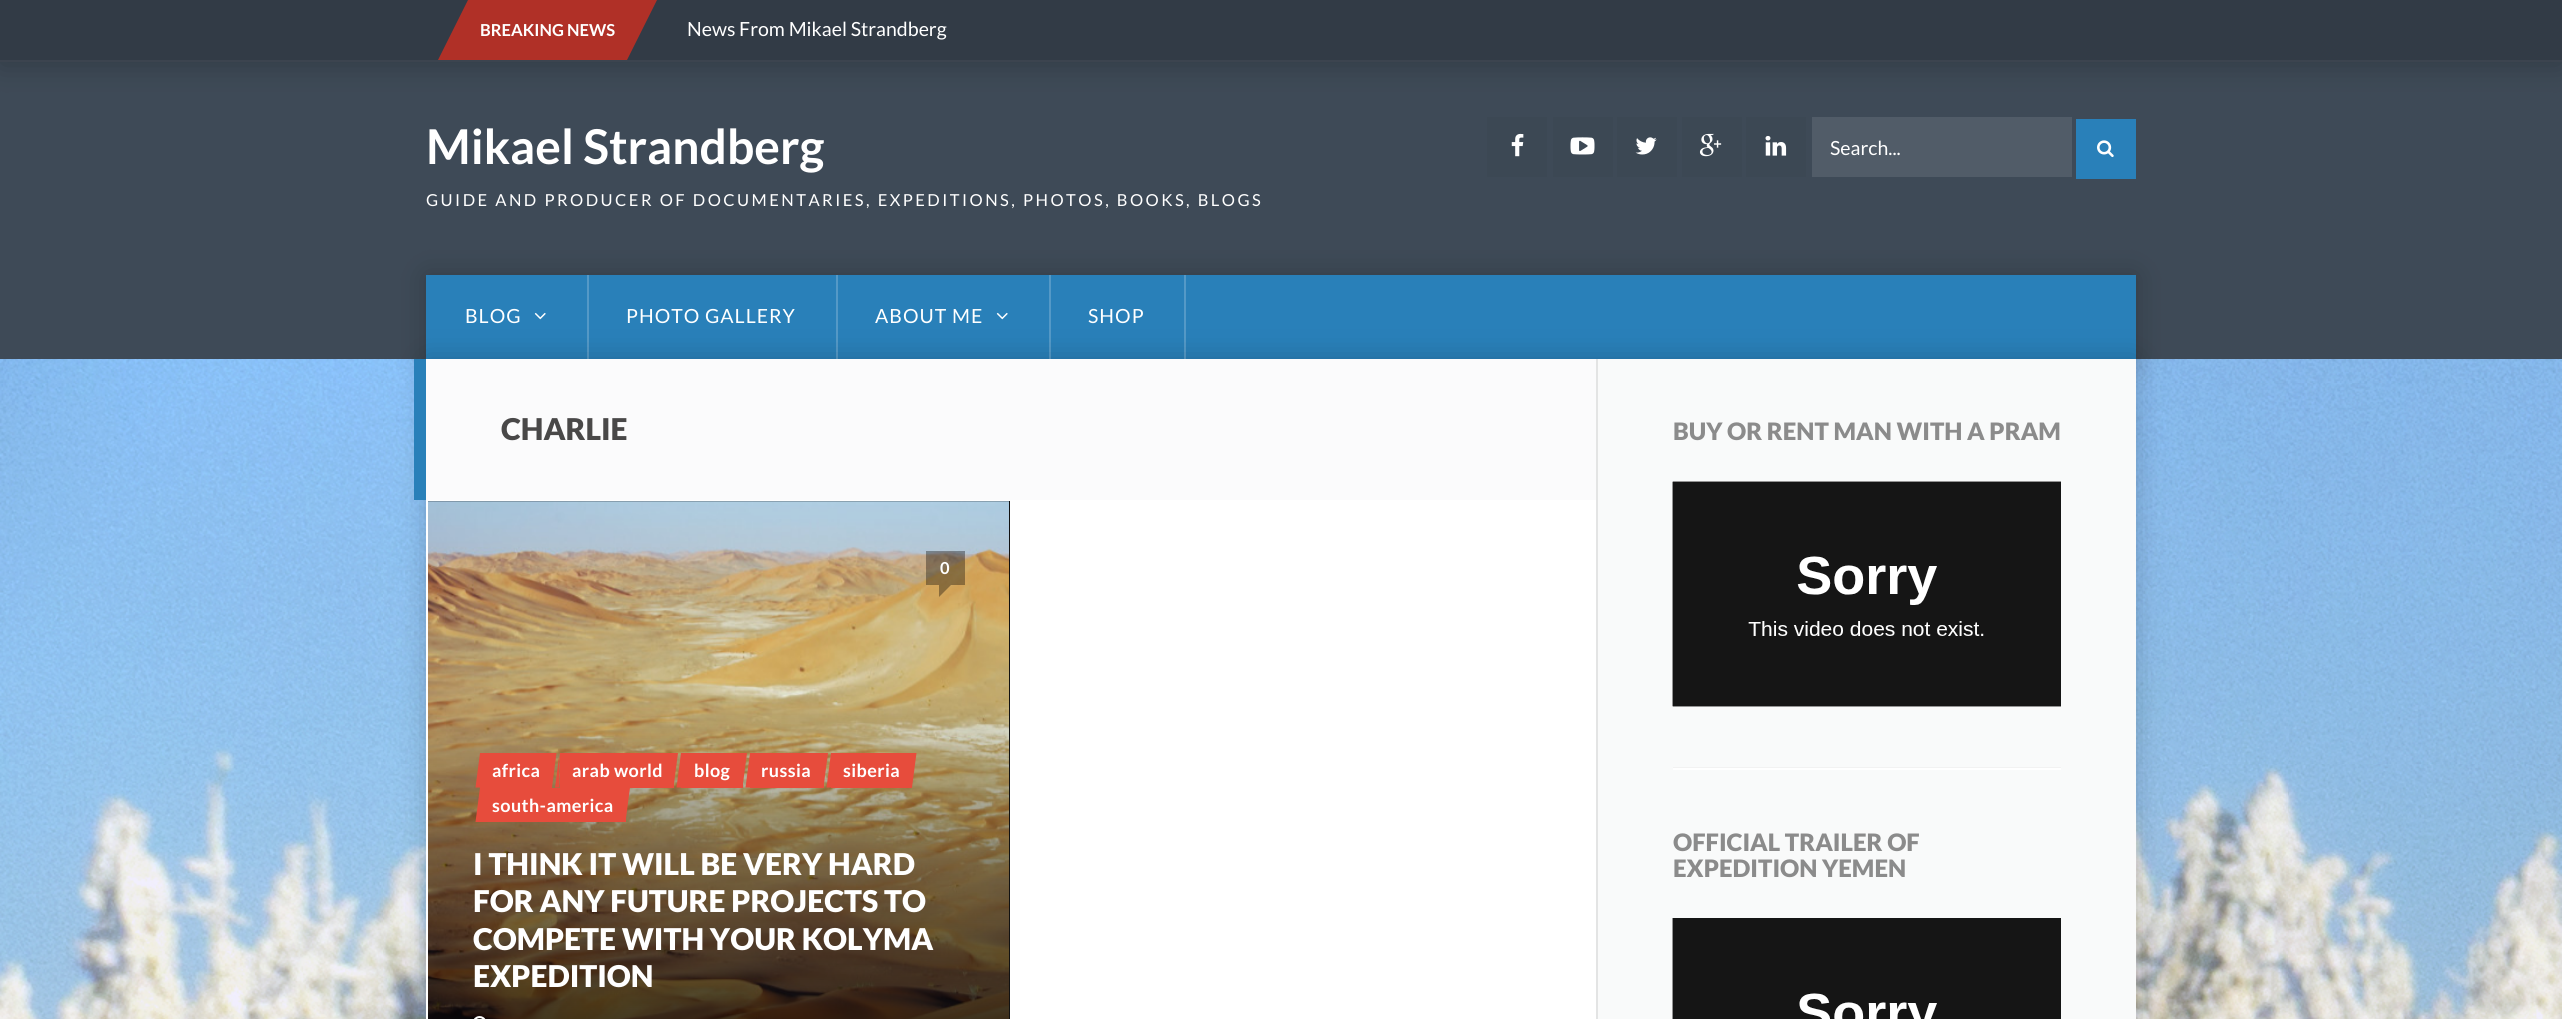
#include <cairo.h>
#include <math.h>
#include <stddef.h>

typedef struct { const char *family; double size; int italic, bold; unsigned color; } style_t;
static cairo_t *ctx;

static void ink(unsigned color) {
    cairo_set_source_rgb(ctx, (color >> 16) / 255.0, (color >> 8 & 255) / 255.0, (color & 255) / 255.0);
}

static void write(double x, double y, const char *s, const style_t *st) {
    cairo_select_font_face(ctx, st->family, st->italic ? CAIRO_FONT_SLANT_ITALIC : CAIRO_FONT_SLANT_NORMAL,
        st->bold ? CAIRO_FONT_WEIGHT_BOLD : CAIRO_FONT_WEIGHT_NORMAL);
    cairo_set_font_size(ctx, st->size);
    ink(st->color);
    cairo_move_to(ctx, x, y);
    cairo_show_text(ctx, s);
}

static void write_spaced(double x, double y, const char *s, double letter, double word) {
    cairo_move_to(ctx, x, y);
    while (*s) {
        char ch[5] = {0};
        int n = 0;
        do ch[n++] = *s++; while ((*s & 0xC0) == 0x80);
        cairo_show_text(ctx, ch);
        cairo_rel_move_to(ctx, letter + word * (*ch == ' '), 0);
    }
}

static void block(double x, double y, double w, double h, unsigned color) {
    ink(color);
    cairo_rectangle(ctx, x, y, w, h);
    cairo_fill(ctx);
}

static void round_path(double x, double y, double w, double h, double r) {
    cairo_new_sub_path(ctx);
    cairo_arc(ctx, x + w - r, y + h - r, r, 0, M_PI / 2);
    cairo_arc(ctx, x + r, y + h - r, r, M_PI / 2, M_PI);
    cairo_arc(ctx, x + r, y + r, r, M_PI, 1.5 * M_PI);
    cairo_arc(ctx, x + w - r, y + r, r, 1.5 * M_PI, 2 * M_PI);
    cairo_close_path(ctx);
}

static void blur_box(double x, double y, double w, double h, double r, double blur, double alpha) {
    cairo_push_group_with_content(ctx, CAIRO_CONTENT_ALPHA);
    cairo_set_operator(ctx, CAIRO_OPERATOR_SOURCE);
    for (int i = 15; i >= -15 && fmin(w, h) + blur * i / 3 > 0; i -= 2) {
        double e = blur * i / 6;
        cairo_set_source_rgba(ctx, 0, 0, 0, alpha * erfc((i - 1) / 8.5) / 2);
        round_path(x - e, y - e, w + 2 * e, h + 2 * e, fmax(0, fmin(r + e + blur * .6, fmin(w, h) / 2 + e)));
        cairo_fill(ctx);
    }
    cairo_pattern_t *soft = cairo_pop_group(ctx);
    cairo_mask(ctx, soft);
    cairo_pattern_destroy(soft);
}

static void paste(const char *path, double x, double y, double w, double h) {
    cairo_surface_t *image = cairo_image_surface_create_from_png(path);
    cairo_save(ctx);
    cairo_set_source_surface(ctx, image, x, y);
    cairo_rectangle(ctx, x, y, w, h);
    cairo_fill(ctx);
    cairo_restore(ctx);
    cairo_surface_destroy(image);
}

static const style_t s1 = {"Lato", 16.5, 0, 1, 0xffffff};
static const style_t s2 = {"Lato", 19.5, 0, 0, 0xffffff};
static const style_t s3 = {"Lato", 48, 0, 1, 0xffffff};
static const style_t s4 = {"Lato Black", 30, 0, 0, 0x494848};
static const style_t s5 = {"Lato Black", 30, 0, 0, 0xffffff};
static const style_t s6 = {"Lato Black", 24, 0, 0, 0x8b8b8b};

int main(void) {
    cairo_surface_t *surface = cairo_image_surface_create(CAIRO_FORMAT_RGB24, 2562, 1019);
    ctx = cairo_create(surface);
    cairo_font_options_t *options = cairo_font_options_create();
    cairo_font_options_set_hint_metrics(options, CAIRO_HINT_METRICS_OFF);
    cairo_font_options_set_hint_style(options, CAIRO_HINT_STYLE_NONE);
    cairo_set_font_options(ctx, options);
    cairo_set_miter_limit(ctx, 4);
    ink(0xffffff);
    cairo_paint(ctx);
    paste("pic1.png", 0, 359, 2562, 660);
    block(0, 0, 2562, 359, 0x3e4a57);
    cairo_save(ctx);
    cairo_set_fill_rule(ctx, CAIRO_FILL_RULE_EVEN_ODD);
    cairo_new_path(ctx);
    cairo_move_to(ctx, 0, 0);
    cairo_line_to(ctx, 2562, 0);
    cairo_line_to(ctx, 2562, 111);
    cairo_line_to(ctx, 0, 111);
    cairo_close_path(ctx);
    cairo_move_to(ctx, 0, 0);
    cairo_line_to(ctx, 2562, 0);
    cairo_line_to(ctx, 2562, 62);
    cairo_line_to(ctx, 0, 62);
    cairo_close_path(ctx);
    cairo_clip(ctx);
    ink(0x000000);
    blur_box(0, 3, 2562, 62, 0, 15, 0.22);
    cairo_restore(ctx);
    cairo_set_source_rgba(ctx, 0, 0, 0, 0.2);
    cairo_rectangle(ctx, 0, 0, 2562, 62);
    cairo_fill(ctx);
    cairo_set_source_rgba(ctx, 1, 1, 1, 0.05);
    cairo_rectangle(ctx, 0, 60, 2562, 2);
    cairo_fill(ctx);
    block(468, 0, 159, 60, 0xb03027);
    cairo_new_path(ctx);
    cairo_move_to(ctx, 468, 60);
    cairo_line_to(ctx, 438, 60);
    cairo_line_to(ctx, 468, 0);
    cairo_close_path(ctx);
    cairo_fill(ctx);
    write(480, 36, "BREAKING NEWS", &s1);
    ink(0xb03027);
    cairo_new_path(ctx);
    cairo_move_to(ctx, 627, 0);
    cairo_line_to(ctx, 657, 0);
    cairo_line_to(ctx, 627, 60);
    cairo_close_path(ctx);
    cairo_fill(ctx);
    write(687, 36, "News From Mikael Strandberg", &s2);
    write(426, 164, "Mikael Strandberg", &s3);
    cairo_select_font_face(ctx, "Lato", CAIRO_FONT_SLANT_NORMAL, CAIRO_FONT_WEIGHT_NORMAL);
    cairo_set_font_size(ctx, 16.5);
    write_spaced(426, 206, "GUIDE AND PRODUCER OF DOCUMENTARIES, EXPEDITIONS, PHOTOS, BOOKS, BLOGS", 2.47, 0);
    block(1487, 117, 60, 60, 0x3c4854);
    paste("pic2.png", 1511, 133, 13, 24);
    block(1553, 117, 60, 60, 0x3c4854);
    paste("pic3.png", 1570, 137, 25, 18);
    block(1617, 117, 60, 60, 0x3c4854);
    paste("pic4.png", 1635, 137, 22, 18);
    block(1682, 117, 60, 60, 0x3c4854);
    paste("pic5.png", 1699, 133, 23, 24);
    block(1746, 117, 60, 60, 0x3c4854);
    paste("pic6.png", 1765, 135, 22, 21);
    block(1812, 117, 260, 60, 0x515c68);
    write(1830, 155, "Search...", &s2);
    block(2076, 119, 60, 60, 0x2980b9);
    paste("pic7.png", 2097, 140, 17, 18);
    ink(0x000000);
    blur_box(426, 275, 1710, 84, 0, 14, 0.2);
    block(426, 275, 1710, 84, 0x2980b9);
    block(587, 275, 2, 84, 0x5499c7);
    ink(0xffffff);
    write_spaced(465, 323, "BLOG", 1, 0);
    paste("pic8.png", 534, 312, 12, 8);
    block(836, 275, 2, 84, 0x5499c7);
    ink(0xffffff);
    write_spaced(626, 323, "PHOTO GALLERY", 1, 0);
    block(1049, 275, 2, 84, 0x5499c7);
    ink(0xffffff);
    write_spaced(875, 323, "ABOUT ME", 1, 0);
    paste("pic8.png", 996, 312, 12, 8);
    block(1184, 275, 2, 84, 0x5499c7);
    ink(0xffffff);
    write_spaced(1088, 323, "SHOP", 1, 0);
    ink(0x000000);
    blur_box(426, 359, 1710, 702, 0, 14, 0.2);
    block(426, 500, 1170, 519, 0xffffff);
    block(426, 359, 1170, 141, 0xfbfbfc);
    block(414, 359, 12, 141, 0x2980b9);
    write(501, 440, "CHARLIE", &s4);
    block(428, 501, 582, 518, 0x111111);
    paste("pic9.png", 428, 501, 581, 518);
    cairo_set_source_rgba(ctx, 0, 0, 0, 0.35);
    cairo_rectangle(ctx, 926, 551, 39, 34);
    cairo_fill(ctx);
    write(940, 574, "0", &s1);
    cairo_set_source_rgba(ctx, 0, 0, 0, 0.35);
    cairo_new_path(ctx);
    cairo_move_to(ctx, 939, 585);
    cairo_line_to(ctx, 951, 585);
    cairo_line_to(ctx, 939, 597);
    cairo_close_path(ctx);
    cairo_fill(ctx);
    block(480, 753, 72, 35, 0xe74c3c);
    cairo_new_path(ctx);
    cairo_move_to(ctx, 480, 787.5);
    cairo_line_to(ctx, 475.5, 787.5);
    cairo_line_to(ctx, 480, 753);
    cairo_close_path(ctx);
    cairo_fill(ctx);
    cairo_set_font_size(ctx, 18);
    ink(0xffffff);
    write_spaced(492, 777, "africa", 0.4, 0);
    ink(0xe74c3c);
    cairo_new_path(ctx);
    cairo_move_to(ctx, 552, 753);
    cairo_line_to(ctx, 556.5, 753);
    cairo_line_to(ctx, 552, 787.5);
    cairo_close_path(ctx);
    cairo_fill(ctx);
    block(560, 753, 114, 35, 0xe74c3c);
    cairo_new_path(ctx);
    cairo_move_to(ctx, 559.5, 787.5);
    cairo_line_to(ctx, 555, 787.5);
    cairo_line_to(ctx, 559.5, 753);
    cairo_close_path(ctx);
    cairo_fill(ctx);
    ink(0xffffff);
    write_spaced(572, 777, "arab world", 0.4, 0);
    ink(0xe74c3c);
    cairo_new_path(ctx);
    cairo_move_to(ctx, 673.5, 753);
    cairo_line_to(ctx, 678, 753);
    cairo_line_to(ctx, 673.5, 787.5);
    cairo_close_path(ctx);
    cairo_fill(ctx);
    block(681, 753, 62, 35, 0xe74c3c);
    cairo_new_path(ctx);
    cairo_move_to(ctx, 681, 787.5);
    cairo_line_to(ctx, 676.5, 787.5);
    cairo_line_to(ctx, 681, 753);
    cairo_close_path(ctx);
    cairo_fill(ctx);
    ink(0xffffff);
    write_spaced(694, 777, "blog", 0.4, 0);
    ink(0xe74c3c);
    cairo_new_path(ctx);
    cairo_move_to(ctx, 742.5, 753);
    cairo_line_to(ctx, 747, 753);
    cairo_line_to(ctx, 742.5, 787.5);
    cairo_close_path(ctx);
    cairo_fill(ctx);
    block(750, 753, 74, 35, 0xe74c3c);
    cairo_new_path(ctx);
    cairo_move_to(ctx, 750, 787.5);
    cairo_line_to(ctx, 745.5, 787.5);
    cairo_line_to(ctx, 750, 753);
    cairo_close_path(ctx);
    cairo_fill(ctx);
    ink(0xffffff);
    write_spaced(761, 777, "russia", 0.4, 0);
    ink(0xe74c3c);
    cairo_new_path(ctx);
    cairo_move_to(ctx, 823.5, 753);
    cairo_line_to(ctx, 828, 753);
    cairo_line_to(ctx, 823.5, 787.5);
    cairo_close_path(ctx);
    cairo_fill(ctx);
    block(831, 753, 81, 35, 0xe74c3c);
    cairo_new_path(ctx);
    cairo_move_to(ctx, 831, 787.5);
    cairo_line_to(ctx, 826.5, 787.5);
    cairo_line_to(ctx, 831, 753);
    cairo_close_path(ctx);
    cairo_fill(ctx);
    ink(0xffffff);
    write_spaced(843, 777, "siberia", 0.4, 0);
    ink(0xe74c3c);
    cairo_new_path(ctx);
    cairo_move_to(ctx, 912, 753);
    cairo_line_to(ctx, 916.5, 753);
    cairo_line_to(ctx, 912, 787.5);
    cairo_close_path(ctx);
    cairo_fill(ctx);
    block(480, 788, 146, 34, 0xe74c3c);
    cairo_new_path(ctx);
    cairo_move_to(ctx, 480, 822);
    cairo_line_to(ctx, 475.5, 822);
    cairo_line_to(ctx, 480, 787.5);
    cairo_close_path(ctx);
    cairo_fill(ctx);
    ink(0xffffff);
    write_spaced(492, 812, "south-america", 0.4, 0);
    ink(0xe74c3c);
    cairo_new_path(ctx);
    cairo_move_to(ctx, 625.5, 787.5);
    cairo_line_to(ctx, 630, 787.5);
    cairo_line_to(ctx, 625.5, 822);
    cairo_close_path(ctx);
    cairo_fill(ctx);
    write(473, 875, "I THINK IT WILL BE VERY HARD", &s5);
    write(473, 912, "FOR ANY FUTURE PROJECTS TO", &s5);
    write(473, 950, "COMPETE WITH YOUR KOLYMA", &s5);
    write(473, 987, "EXPEDITION", &s5);
    paste("pic10.png", 474, 1016, 12, 3);
    block(1598, 359, 538, 660, 0xf9fafa);
    block(1596, 359, 2, 660, 0xe3e4e4);
    block(1673, 767, 388, 1, 0xf2f2f2);
    write(1673, 440, "BUY OR RENT MAN WITH A PRAM", &s6);
    paste("pic11.png", 1672, 481, 389, 226);
    block(1673, 768, 388, 2, 0xffffff);
    write(1673, 851, "OFFICIAL TRAILER OF", &s6);
    write(1673, 877, "EXPEDITION YEMEN", &s6);
    paste("pic12.png", 1672, 918, 389, 101);
    cairo_surface_write_to_png(surface, "screenshot.png");
    cairo_font_options_destroy(options);
    cairo_destroy(ctx);
    cairo_surface_destroy(surface);
    return 0;
}
